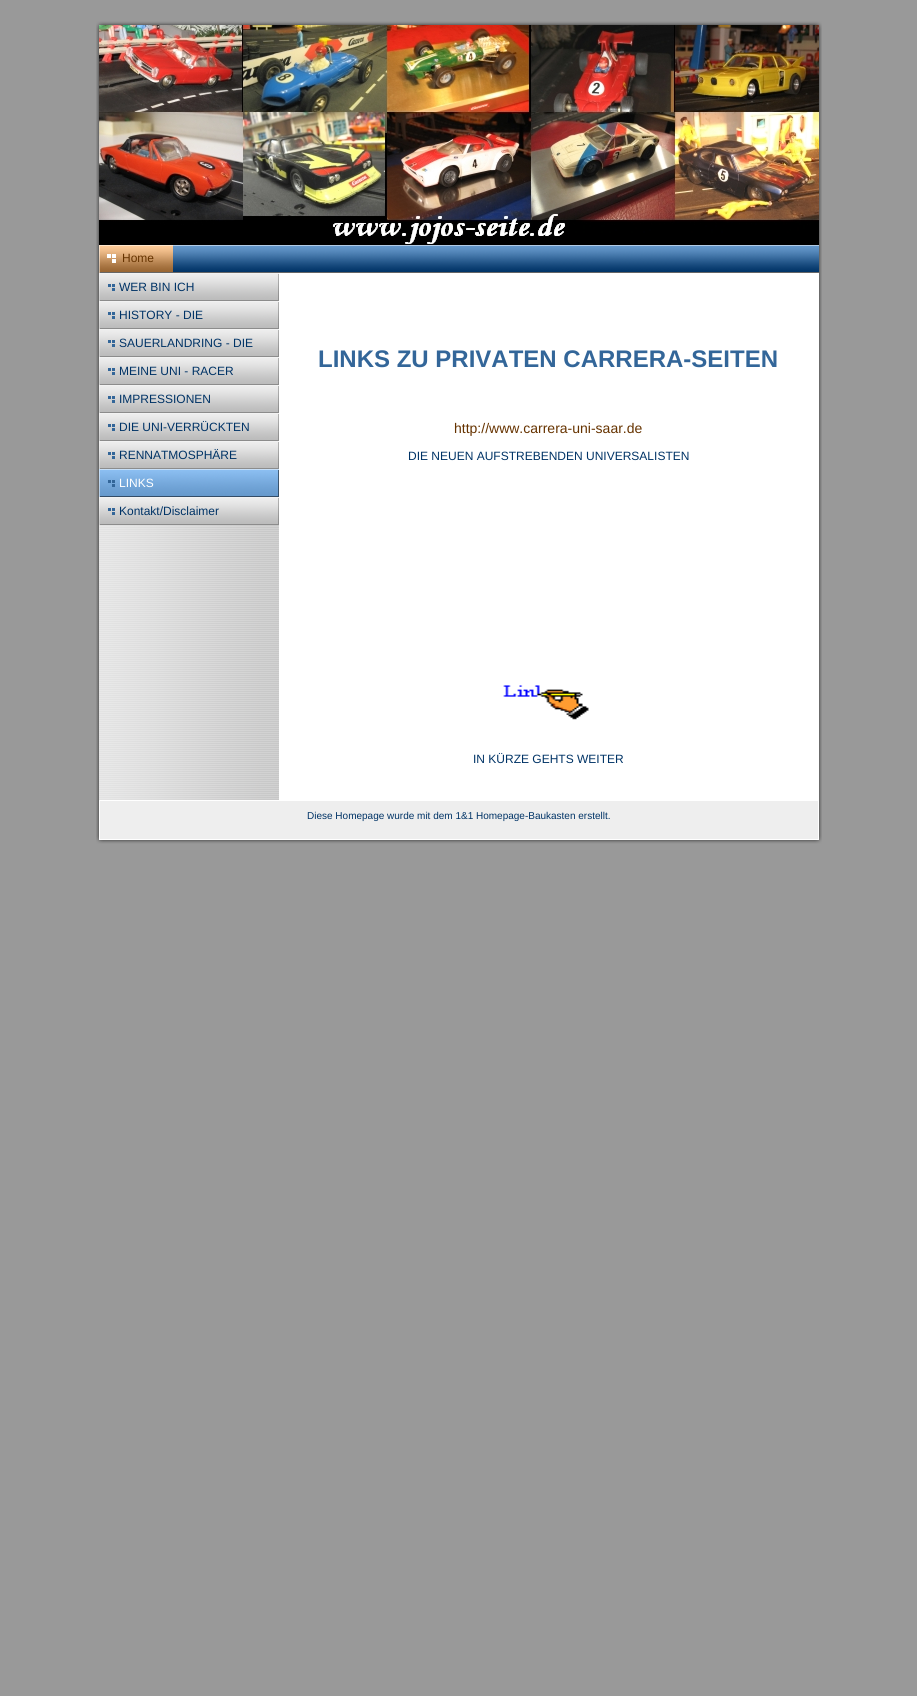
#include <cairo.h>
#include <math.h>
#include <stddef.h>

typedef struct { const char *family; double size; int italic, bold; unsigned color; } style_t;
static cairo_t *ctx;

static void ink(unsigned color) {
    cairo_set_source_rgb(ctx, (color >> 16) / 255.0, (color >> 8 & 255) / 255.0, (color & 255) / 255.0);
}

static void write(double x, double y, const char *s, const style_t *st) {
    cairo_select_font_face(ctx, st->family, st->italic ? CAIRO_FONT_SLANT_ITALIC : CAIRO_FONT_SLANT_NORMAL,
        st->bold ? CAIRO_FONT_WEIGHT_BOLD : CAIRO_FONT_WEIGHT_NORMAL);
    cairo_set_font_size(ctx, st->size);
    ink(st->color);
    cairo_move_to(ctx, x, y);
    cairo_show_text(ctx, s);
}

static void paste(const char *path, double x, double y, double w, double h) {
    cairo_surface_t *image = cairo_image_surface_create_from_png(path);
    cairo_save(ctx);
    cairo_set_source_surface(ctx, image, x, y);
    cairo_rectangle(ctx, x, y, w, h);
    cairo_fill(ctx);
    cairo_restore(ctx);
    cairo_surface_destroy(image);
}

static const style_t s1 = {"Liberation Sans", 12, 0, 0, 0x663300};
static const style_t s2 = {"Liberation Sans", 12, 0, 0, 0x003366};
static const style_t s3 = {"Liberation Sans", 12, 0, 0, 0xffffff};
static const style_t s4 = {"Liberation Sans", 24, 0, 1, 0x336699};
static const style_t s5 = {"Liberation Sans", 14, 0, 0, 0x663300};
static const style_t s6 = {"Liberation Sans", 10, 0, 0, 0x003366};

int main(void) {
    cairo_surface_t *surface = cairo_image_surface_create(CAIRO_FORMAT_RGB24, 917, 1696);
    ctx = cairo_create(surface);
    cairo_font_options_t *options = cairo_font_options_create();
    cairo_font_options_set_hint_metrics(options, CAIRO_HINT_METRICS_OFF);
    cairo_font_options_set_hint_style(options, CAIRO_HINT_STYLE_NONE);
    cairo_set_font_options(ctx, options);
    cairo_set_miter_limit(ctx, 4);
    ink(0x999999);
    cairo_paint(ctx);
    paste("pic1.png", 96, 220, 726, 580);
    paste("pic2.png", 96, 0, 726, 220);
    paste("pic3.png", 99, 25, 720, 220);
    paste("pic4.png", 173, 245, 646, 28);
    paste("pic5.png", 98, 245, 75, 28);
    write(122, 262, "Home", &s1);
    paste("pic6.png", 99, 273, 180, 28);
    write(119, 291, "WER BIN ICH", &s2);
    paste("pic6.png", 99, 301, 180, 28);
    write(119, 319, "HISTORY - DIE", &s2);
    paste("pic6.png", 99, 329, 180, 28);
    write(119, 347, "SAUERLANDRING - DIE", &s2);
    paste("pic6.png", 99, 357, 180, 28);
    write(119, 375, "MEINE UNI - RACER", &s2);
    paste("pic6.png", 99, 385, 180, 28);
    write(119, 403, "IMPRESSIONEN", &s2);
    paste("pic6.png", 99, 413, 180, 28);
    write(119, 431, "DIE UNI-VERRÜCKTEN", &s2);
    paste("pic6.png", 99, 441, 180, 28);
    write(119, 459, "RENNATMOSPHÄRE", &s2);
    paste("pic7.png", 99, 469, 180, 28);
    write(119, 487, "LINKS", &s3);
    paste("pic6.png", 99, 497, 180, 28);
    write(119, 515, "Kontakt/Disclaimer", &s2);
    write(318, 367, "LINKS ZU PRIVATEN CARRERA-SEITEN", &s4);
    write(454, 433, "http://www.carrera-uni-saar.de", &s5);
    write(408, 460, "DIE NEUEN AUFSTREBENDEN UNIVERSALISTEN", &s2);
    paste("pic8.png", 503, 685, 86, 35);
    write(473, 763, "IN KÜRZE GEHTS WEITER", &s2);
    paste("pic9.png", 96, 800, 726, 65);
    write(307, 819, "Diese Homepage wurde mit dem 1&1 Homepage-Baukasten erstellt.", &s6);
    cairo_surface_write_to_png(surface, "screenshot.png");
    cairo_font_options_destroy(options);
    cairo_destroy(ctx);
    cairo_surface_destroy(surface);
    return 0;
}
